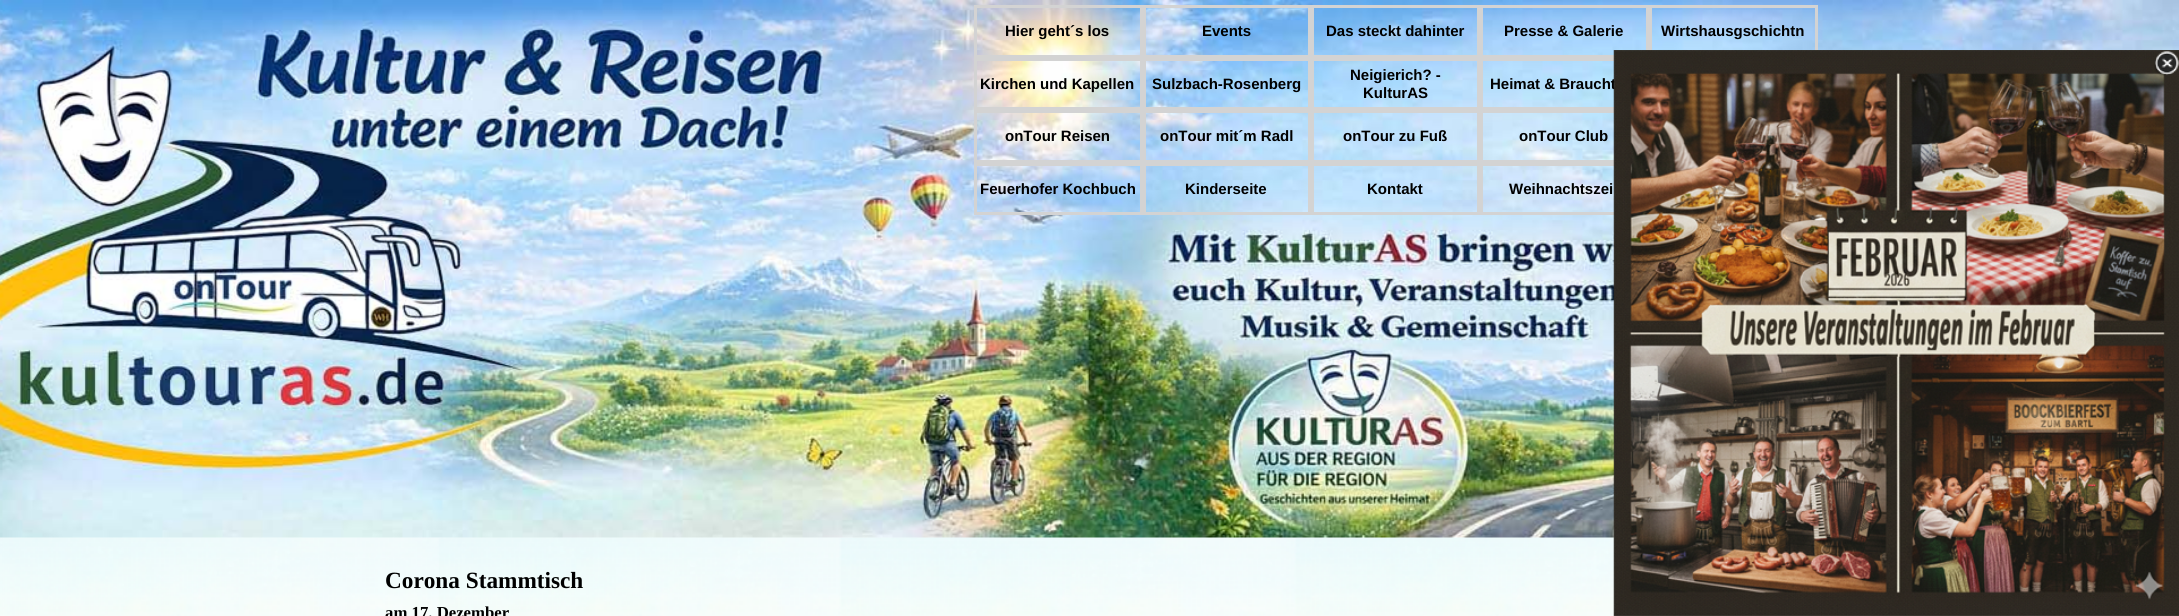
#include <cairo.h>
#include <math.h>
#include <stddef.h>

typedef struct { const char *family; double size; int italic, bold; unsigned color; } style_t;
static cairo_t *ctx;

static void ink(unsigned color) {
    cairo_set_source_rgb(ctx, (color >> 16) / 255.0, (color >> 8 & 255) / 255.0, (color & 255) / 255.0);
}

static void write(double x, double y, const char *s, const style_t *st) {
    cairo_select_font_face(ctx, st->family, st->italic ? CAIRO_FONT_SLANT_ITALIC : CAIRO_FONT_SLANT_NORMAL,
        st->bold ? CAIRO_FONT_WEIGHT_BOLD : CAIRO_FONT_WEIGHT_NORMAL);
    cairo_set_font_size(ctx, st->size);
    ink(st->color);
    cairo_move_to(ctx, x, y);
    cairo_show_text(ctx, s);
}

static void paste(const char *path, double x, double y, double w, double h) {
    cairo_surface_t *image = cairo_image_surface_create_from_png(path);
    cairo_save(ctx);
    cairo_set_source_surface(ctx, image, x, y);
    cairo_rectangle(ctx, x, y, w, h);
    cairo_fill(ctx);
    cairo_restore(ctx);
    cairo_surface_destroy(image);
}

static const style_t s1 = {"Liberation Sans", 15, 0, 1, 0x000000};
static const style_t s2 = {"Liberation Serif", 23.25, 0, 1, 0x000000};
static const style_t s3 = {"Liberation Serif", 16.75, 0, 1, 0x000000};

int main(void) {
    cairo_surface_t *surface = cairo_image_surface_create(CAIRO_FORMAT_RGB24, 2179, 616);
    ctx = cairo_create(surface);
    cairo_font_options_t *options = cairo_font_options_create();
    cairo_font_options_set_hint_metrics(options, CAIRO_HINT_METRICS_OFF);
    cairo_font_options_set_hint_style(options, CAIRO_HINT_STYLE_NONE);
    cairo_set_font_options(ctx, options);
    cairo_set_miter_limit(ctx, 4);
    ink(0xffffff);
    cairo_paint(ctx);
    paste("pic1.png", 0, 537, 2179, 79);
    paste("pic3.png", 0, 537, 2179, 1);
    paste("pic2.png", 0, 0, 2179, 538);
    cairo_rectangle(ctx, 975.5, 6.5, 166, 50);
    ink(0xd3d3d3);
    cairo_set_line_width(ctx, 3);
    cairo_stroke(ctx);
    write(1005, 36, "Hier geht´s los", &s1);
    cairo_rectangle(ctx, 1144.5, 6.5, 165, 50);
    ink(0xd3d3d3);
    cairo_stroke(ctx);
    write(1202, 36, "Events", &s1);
    cairo_rectangle(ctx, 1312.5, 6.5, 166, 50);
    ink(0xd3d3d3);
    cairo_stroke(ctx);
    write(1326, 36, "Das steckt dahinter", &s1);
    cairo_rectangle(ctx, 1481.5, 6.5, 166, 50);
    ink(0xd3d3d3);
    cairo_stroke(ctx);
    write(1504, 36, "Presse & Galerie", &s1);
    cairo_rectangle(ctx, 1650.5, 6.5, 166, 50);
    ink(0xd3d3d3);
    cairo_stroke(ctx);
    write(1661, 36, "Wirtshausgschichtn", &s1);
    cairo_rectangle(ctx, 975.5, 59.5, 166, 49);
    ink(0xd3d3d3);
    cairo_stroke(ctx);
    write(980, 89, "Kirchen und Kapellen", &s1);
    cairo_rectangle(ctx, 1144.5, 59.5, 165, 49);
    ink(0xd3d3d3);
    cairo_stroke(ctx);
    write(1152, 89, "Sulzbach-Rosenberg", &s1);
    cairo_rectangle(ctx, 1312.5, 59.5, 166, 49);
    ink(0xd3d3d3);
    cairo_stroke(ctx);
    write(1350, 80, "Neigierich? -", &s1);
    write(1363, 98, "KulturAS", &s1);
    cairo_rectangle(ctx, 1481.5, 59.5, 166, 49);
    ink(0xd3d3d3);
    cairo_stroke(ctx);
    write(1490, 89, "Heimat & Braucht", &s1);
    cairo_rectangle(ctx, 975.5, 111.5, 166, 50);
    ink(0xd3d3d3);
    cairo_stroke(ctx);
    write(1005, 141, "onTour Reisen", &s1);
    cairo_rectangle(ctx, 1144.5, 111.5, 165, 50);
    ink(0xd3d3d3);
    cairo_stroke(ctx);
    write(1160, 141, "onTour mit´m Radl", &s1);
    cairo_rectangle(ctx, 1312.5, 111.5, 166, 50);
    ink(0xd3d3d3);
    cairo_stroke(ctx);
    write(1343, 141, "onTour zu Fuß", &s1);
    cairo_rectangle(ctx, 1481.5, 111.5, 166, 50);
    ink(0xd3d3d3);
    cairo_stroke(ctx);
    write(1519, 141, "onTour Club", &s1);
    cairo_rectangle(ctx, 975.5, 164.5, 166, 49);
    ink(0xd3d3d3);
    cairo_stroke(ctx);
    write(980, 194, "Feuerhofer Kochbuch", &s1);
    cairo_rectangle(ctx, 1144.5, 164.5, 165, 49);
    ink(0xd3d3d3);
    cairo_stroke(ctx);
    write(1185, 194, "Kinderseite", &s1);
    cairo_rectangle(ctx, 1312.5, 164.5, 166, 49);
    ink(0xd3d3d3);
    cairo_stroke(ctx);
    write(1367, 194, "Kontakt", &s1);
    cairo_rectangle(ctx, 1481.5, 164.5, 166, 49);
    ink(0xd3d3d3);
    cairo_stroke(ctx);
    write(1509, 194, "Weihnachtszei", &s1);
    write(385, 588, "Corona Stammtisch", &s2);
    write(385, 618, "am 17. Dezember", &s3);
    paste("pic4.png", 1613, 50, 566, 566);
    paste("pic5.png", 2154, 51, 25, 25);
    cairo_surface_write_to_png(surface, "screenshot.png");
    cairo_font_options_destroy(options);
    cairo_destroy(ctx);
    cairo_surface_destroy(surface);
    return 0;
}
